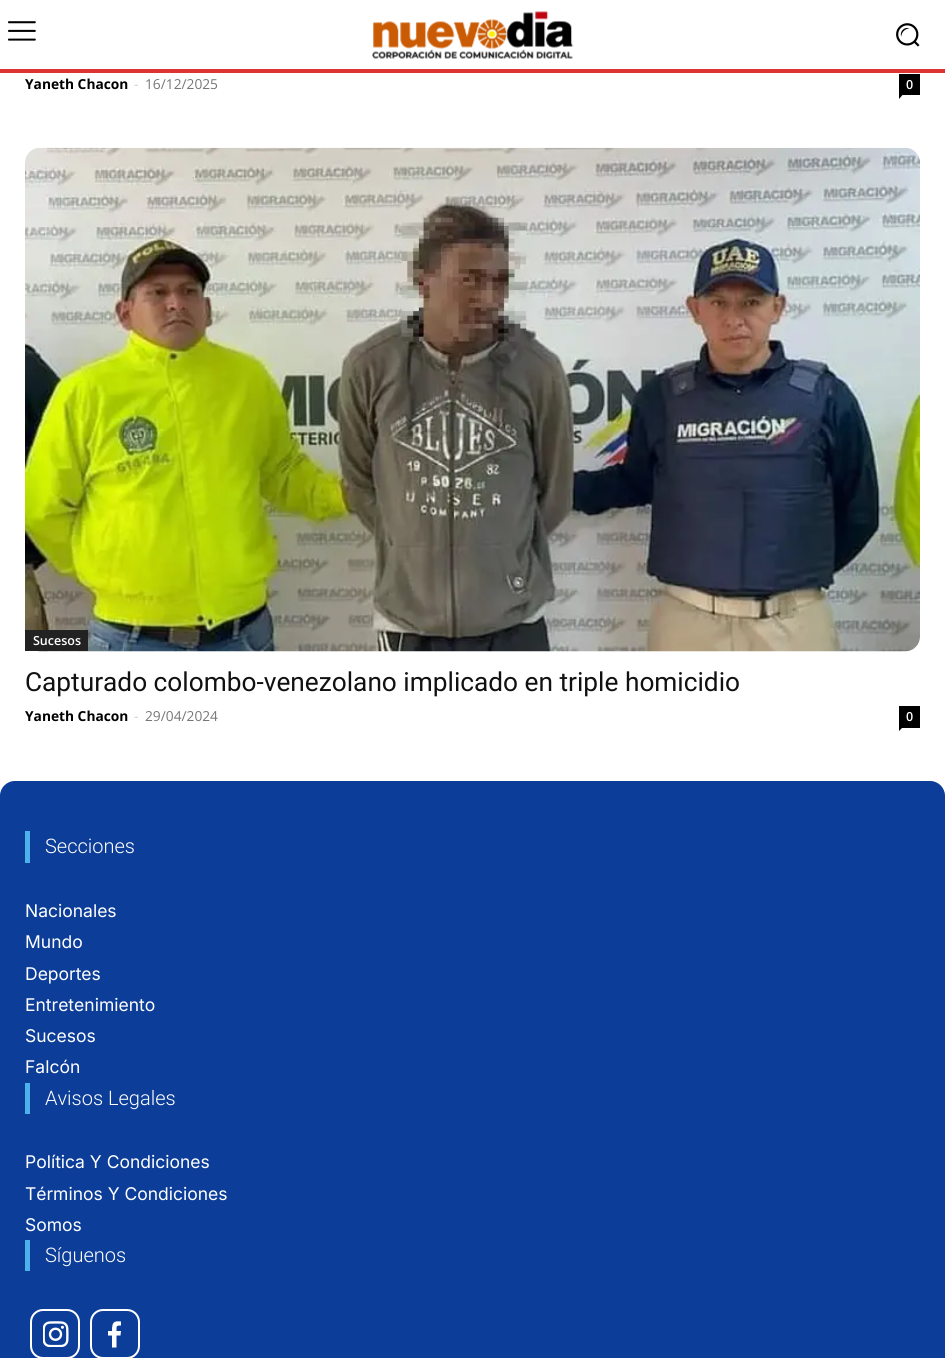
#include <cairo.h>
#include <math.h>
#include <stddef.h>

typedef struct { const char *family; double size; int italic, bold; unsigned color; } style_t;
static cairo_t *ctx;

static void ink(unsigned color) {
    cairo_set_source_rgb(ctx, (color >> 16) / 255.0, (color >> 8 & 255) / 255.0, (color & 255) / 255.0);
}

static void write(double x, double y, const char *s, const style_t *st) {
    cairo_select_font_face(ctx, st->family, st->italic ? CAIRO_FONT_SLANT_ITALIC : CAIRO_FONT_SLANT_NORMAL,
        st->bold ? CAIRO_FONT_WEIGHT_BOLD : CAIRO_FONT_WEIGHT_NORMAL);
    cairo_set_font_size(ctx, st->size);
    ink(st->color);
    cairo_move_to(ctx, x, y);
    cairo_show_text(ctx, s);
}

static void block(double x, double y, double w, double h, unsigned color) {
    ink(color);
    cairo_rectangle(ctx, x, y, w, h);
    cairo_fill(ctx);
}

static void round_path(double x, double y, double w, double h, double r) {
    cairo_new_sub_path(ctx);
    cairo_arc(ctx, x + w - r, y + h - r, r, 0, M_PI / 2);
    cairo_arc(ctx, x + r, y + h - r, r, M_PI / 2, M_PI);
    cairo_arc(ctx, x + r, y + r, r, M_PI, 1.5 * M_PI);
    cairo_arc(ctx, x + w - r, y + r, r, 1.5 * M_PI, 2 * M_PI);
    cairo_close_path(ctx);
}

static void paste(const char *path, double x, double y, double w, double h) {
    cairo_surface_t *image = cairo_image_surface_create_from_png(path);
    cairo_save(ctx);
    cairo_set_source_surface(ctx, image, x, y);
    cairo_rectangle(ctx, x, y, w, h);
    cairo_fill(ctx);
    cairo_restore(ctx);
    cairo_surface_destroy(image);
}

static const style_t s1 = {"Open Sans", 13.75, 0, 1, 0x000000};
static const style_t s2 = {"Open Sans", 13.75, 0, 0, 0xcccccc};
static const style_t s3 = {"Open Sans", 13.75, 0, 0, 0x767676};
static const style_t s4 = {"Open Sans SemiBold", 12.5, 0, 0, 0xffffff};
static const style_t s5 = {"Roboto", 26.25, 0, 0, 0x111111};
static const style_t s6 = {"Roboto Light", 20, 0, 0, 0xffffff};
static const style_t s7 = {"Inter", 17.5, 0, 0, 0xffffff};

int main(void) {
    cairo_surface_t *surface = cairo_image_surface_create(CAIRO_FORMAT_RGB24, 945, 1358);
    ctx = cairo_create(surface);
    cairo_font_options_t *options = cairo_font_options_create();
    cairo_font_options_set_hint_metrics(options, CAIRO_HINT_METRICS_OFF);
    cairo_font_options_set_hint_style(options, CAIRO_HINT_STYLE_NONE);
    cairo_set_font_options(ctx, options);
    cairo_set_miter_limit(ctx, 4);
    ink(0xffffff);
    cairo_paint(ctx);
    paste("pic1.png", 7, 21, 29, 20);
    paste("pic2.png", 372, 11, 202, 48);
    paste("pic3.png", 896, 23, 24, 24);
    block(0, 69, 945, 4, 0xdd3333);
    write(25, 89, "Yaneth Chacon", &s1);
    write(134, 89, "-", &s2);
    write(145, 89, "16/12/2025", &s3);
    block(899, 74, 21, 21, 0x000000);
    write(906, 89, "0", &s4);
    ink(0x000000);
    cairo_new_path(ctx);
    cairo_move_to(ctx, 899, 95);
    cairo_line_to(ctx, 902.5, 95);
    cairo_line_to(ctx, 899, 99);
    cairo_close_path(ctx);
    cairo_fill(ctx);
    paste("pic4.png", 25, 147, 895, 505);
    block(25, 630, 63, 21, 0x222222);
    write(33, 645, "Sucesos", &s4);
    write(25, 691, "Capturado colombo-venezolano implicado en triple homicidio", &s5);
    write(25, 721, "Yaneth Chacon", &s1);
    write(134, 721, "-", &s2);
    write(145, 721, "29/04/2024", &s3);
    block(899, 706, 21, 22, 0x000000);
    write(906, 721, "0", &s4);
    ink(0x000000);
    cairo_new_path(ctx);
    cairo_move_to(ctx, 899, 727.5);
    cairo_line_to(ctx, 902.5, 727.5);
    cairo_line_to(ctx, 899, 731);
    cairo_close_path(ctx);
    cairo_fill(ctx);
    ink(0x0c3f9a);
    round_path(0, 781, 945, 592, 15);
    cairo_fill(ctx);
    cairo_set_source_rgba(ctx, 0.047, 0.247, 0.604, 0.2);
    round_path(0, 781, 945, 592, 15);
    cairo_fill(ctx);
    block(25, 831, 5, 32, 0x4db2ec);
    write(45, 853, "Secciones", &s6);
    write(25, 917, "Nacionales", &s7);
    write(25, 948, "Mundo", &s7);
    write(25, 980, "Deportes", &s7);
    write(25, 1011, "Entretenimiento", &s7);
    write(25, 1042, "Sucesos", &s7);
    write(25, 1073, "Falcón", &s7);
    block(25, 1083, 5, 31, 0x4db2ec);
    write(45, 1105, "Avisos Legales", &s6);
    write(25, 1168, "Política Y Condiciones", &s7);
    write(25, 1200, "Términos Y Condiciones", &s7);
    write(25, 1231, "Somos", &s7);
    block(25, 1240, 5, 31, 0x4db2ec);
    write(45, 1262, "Síguenos", &s6);
    paste("pic5.png", 30, 1309, 50, 49);
    round_path(91, 1310, 48, 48, 12);
    cairo_stroke(ctx);
    cairo_new_path(ctx);
    cairo_move_to(ctx, 116.5, 1347.5);
    cairo_line_to(ctx, 116.5, 1335.5);
    cairo_line_to(ctx, 120.5, 1335.5);
    cairo_line_to(ctx, 121, 1331);
    cairo_line_to(ctx, 116.5, 1331);
    cairo_curve_to(ctx, 116.5, 1326, 116, 1325.5, 121, 1325.5);
    cairo_line_to(ctx, 121, 1321.5);
    cairo_curve_to(ctx, 113, 1320.5, 112, 1323, 112, 1331);
    cairo_line_to(ctx, 108, 1331);
    cairo_line_to(ctx, 108, 1335.5);
    cairo_line_to(ctx, 112, 1335.5);
    cairo_line_to(ctx, 112, 1347.5);
    cairo_close_path(ctx);
    cairo_fill(ctx);
    cairo_surface_write_to_png(surface, "screenshot.png");
    cairo_font_options_destroy(options);
    cairo_destroy(ctx);
    cairo_surface_destroy(surface);
    return 0;
}
